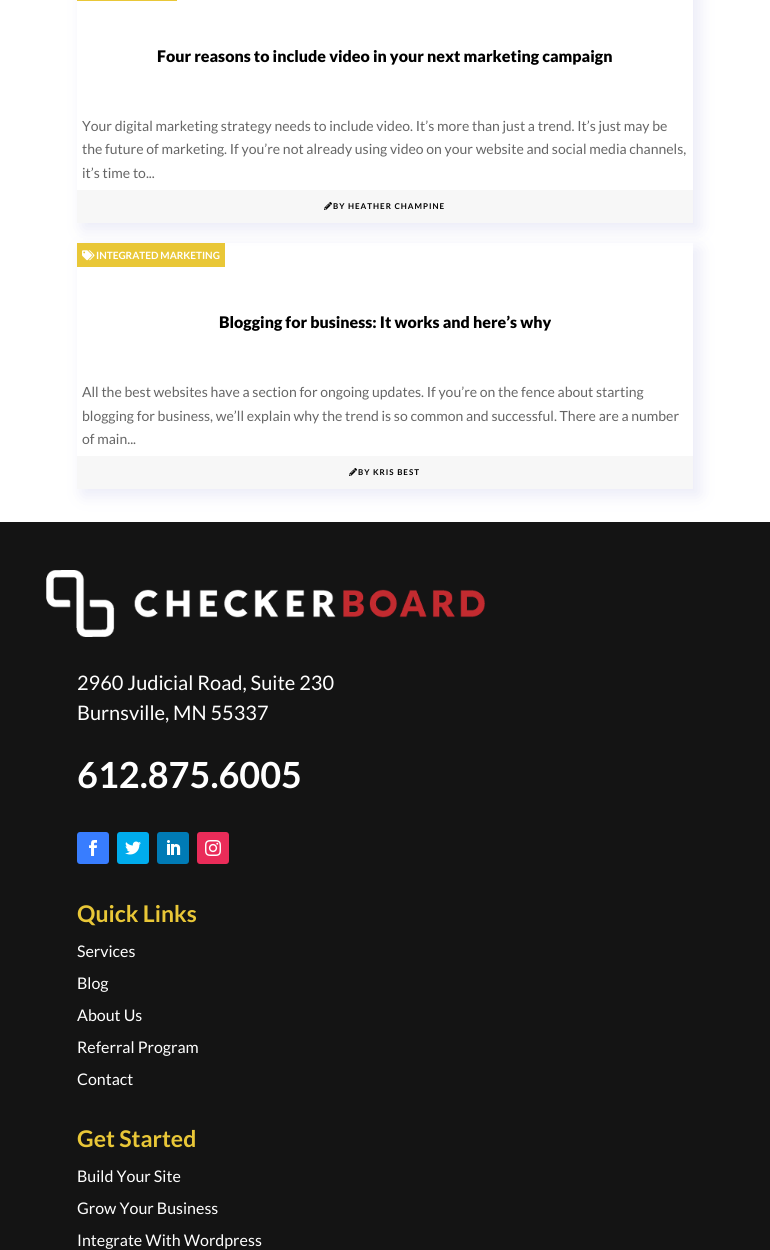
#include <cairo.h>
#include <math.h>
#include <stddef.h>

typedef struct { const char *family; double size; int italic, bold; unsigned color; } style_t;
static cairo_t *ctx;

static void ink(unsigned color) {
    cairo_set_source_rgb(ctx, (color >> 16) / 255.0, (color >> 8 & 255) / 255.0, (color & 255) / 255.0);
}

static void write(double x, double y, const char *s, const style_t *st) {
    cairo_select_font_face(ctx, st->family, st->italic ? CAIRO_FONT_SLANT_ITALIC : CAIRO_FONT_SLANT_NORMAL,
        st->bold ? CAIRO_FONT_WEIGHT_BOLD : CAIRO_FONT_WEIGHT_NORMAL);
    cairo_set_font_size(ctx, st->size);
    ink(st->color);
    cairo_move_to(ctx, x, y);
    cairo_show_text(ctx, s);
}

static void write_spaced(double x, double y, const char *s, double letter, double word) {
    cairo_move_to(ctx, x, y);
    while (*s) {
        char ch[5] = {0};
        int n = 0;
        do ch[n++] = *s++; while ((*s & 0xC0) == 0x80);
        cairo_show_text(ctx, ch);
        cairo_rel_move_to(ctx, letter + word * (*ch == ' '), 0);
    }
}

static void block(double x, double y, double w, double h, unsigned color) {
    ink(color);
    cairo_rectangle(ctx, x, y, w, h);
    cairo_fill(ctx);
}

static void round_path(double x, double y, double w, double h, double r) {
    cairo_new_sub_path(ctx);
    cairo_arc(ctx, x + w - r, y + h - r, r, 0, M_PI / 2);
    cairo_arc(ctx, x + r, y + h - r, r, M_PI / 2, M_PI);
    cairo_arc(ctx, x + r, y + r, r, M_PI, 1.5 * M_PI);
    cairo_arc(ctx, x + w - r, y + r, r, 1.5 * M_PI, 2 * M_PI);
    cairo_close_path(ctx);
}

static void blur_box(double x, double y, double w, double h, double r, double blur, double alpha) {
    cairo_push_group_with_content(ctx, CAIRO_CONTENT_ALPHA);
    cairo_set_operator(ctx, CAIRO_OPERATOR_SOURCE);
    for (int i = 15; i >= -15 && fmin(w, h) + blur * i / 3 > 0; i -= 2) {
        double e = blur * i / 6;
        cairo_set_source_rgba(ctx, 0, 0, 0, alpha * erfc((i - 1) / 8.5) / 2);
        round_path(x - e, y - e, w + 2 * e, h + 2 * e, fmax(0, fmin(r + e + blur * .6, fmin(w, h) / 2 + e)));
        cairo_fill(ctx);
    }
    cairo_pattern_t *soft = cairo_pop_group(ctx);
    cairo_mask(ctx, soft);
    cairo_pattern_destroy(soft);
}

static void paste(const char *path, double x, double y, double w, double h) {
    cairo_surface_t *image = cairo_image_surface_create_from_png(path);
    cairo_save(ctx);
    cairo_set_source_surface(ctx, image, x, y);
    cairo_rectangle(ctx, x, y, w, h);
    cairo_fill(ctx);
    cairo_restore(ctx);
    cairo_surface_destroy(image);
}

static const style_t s1 = {"Lato Black", 16, 0, 0, 0x000000};
static const style_t s2 = {"Lato", 14, 0, 0, 0x666666};
static const style_t s3 = {"Lato", 10, 0, 1, 0xffffff};
static const style_t s4 = {"Lato", 20, 0, 0, 0xffffff};
static const style_t s5 = {"Lato", 36, 0, 1, 0xffffff};
static const style_t s6 = {"Lato", 23, 0, 1, 0xe9c737};
static const style_t s7 = {"Lato", 16, 0, 0, 0xffffff};

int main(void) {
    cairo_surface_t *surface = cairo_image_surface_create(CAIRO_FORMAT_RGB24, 770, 1250);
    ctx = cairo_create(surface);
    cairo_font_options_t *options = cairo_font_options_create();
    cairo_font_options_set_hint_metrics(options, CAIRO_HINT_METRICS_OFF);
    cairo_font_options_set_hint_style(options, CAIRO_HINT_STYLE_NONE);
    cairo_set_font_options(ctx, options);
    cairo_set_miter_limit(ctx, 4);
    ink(0xffffff);
    cairo_paint(ctx);
    cairo_save(ctx);
    cairo_set_fill_rule(ctx, CAIRO_FILL_RULE_EVEN_ODD);
    cairo_new_path(ctx);
    cairo_move_to(ctx, 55, 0);
    cairo_line_to(ctx, 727, 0);
    cairo_line_to(ctx, 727, 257);
    cairo_line_to(ctx, 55, 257);
    cairo_close_path(ctx);
    cairo_move_to(ctx, 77, -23);
    cairo_line_to(ctx, 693, -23);
    cairo_line_to(ctx, 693, 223);
    cairo_line_to(ctx, 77, 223);
    cairo_close_path(ctx);
    cairo_clip(ctx);
    ink(0x474ab6);
    blur_box(83, -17, 616, 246, 0, 9, 0.12);
    cairo_restore(ctx);
    block(77, 0, 100, 1, 0xe9c737);
    write(157, 62, "Four reasons to include video in your next marketing campaign", &s1);
    write(82, 131, "Your digital marketing strategy needs to include video. It’s more than just a trend. It’s just may be", &s2);
    write(82, 154, "the future of marketing. If you’re not already using video on your website and social media channels,", &s2);
    write(82, 178, "it’s time to...", &s2);
    block(77, 190, 616, 33, 0xf7f7f7);
    paste("pic1.png", 324, 202, 8, 8);
    cairo_select_font_face(ctx, "Lato", CAIRO_FONT_SLANT_NORMAL, CAIRO_FONT_WEIGHT_BOLD);
    cairo_set_font_size(ctx, 8);
    ink(0x000000);
    write_spaced(333, 209, "BY HEATHER CHAMPINE", 1, 0);
    cairo_save(ctx);
    cairo_set_fill_rule(ctx, CAIRO_FILL_RULE_EVEN_ODD);
    cairo_new_path(ctx);
    cairo_move_to(ctx, 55, 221);
    cairo_line_to(ctx, 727, 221);
    cairo_line_to(ctx, 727, 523);
    cairo_line_to(ctx, 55, 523);
    cairo_close_path(ctx);
    cairo_move_to(ctx, 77, 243);
    cairo_line_to(ctx, 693, 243);
    cairo_line_to(ctx, 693, 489);
    cairo_line_to(ctx, 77, 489);
    cairo_close_path(ctx);
    cairo_clip(ctx);
    ink(0x474ab6);
    blur_box(83, 249, 616, 246, 0, 9, 0.12);
    cairo_restore(ctx);
    block(77, 243, 148, 24, 0xe9c737);
    paste("pic2.png", 82, 250, 13, 11);
    write(96, 259, "INTEGRATED MARKETING", &s3);
    write(219, 328, "Blogging for business: It works and here’s why", &s1);
    write(82, 397, "All the best websites have a section for ongoing updates. If you’re on the fence about starting", &s2);
    write(82, 421, "blogging for business, we’ll explain why the trend is so common and successful. There are a number", &s2);
    write(82, 444, "of main...", &s2);
    block(77, 456, 616, 33, 0xf7f7f7);
    paste("pic1.png", 349, 468, 8, 8);
    cairo_select_font_face(ctx, "Lato", CAIRO_FONT_SLANT_NORMAL, CAIRO_FONT_WEIGHT_BOLD);
    cairo_set_font_size(ctx, 8);
    ink(0x000000);
    write_spaced(358, 475, "BY KRIS BEST", 1, 0);
    block(0, 522, 770, 728, 0x141414);
    paste("pic3.png", 46, 570, 439, 67);
    write(77, 690, "2960 Judicial Road, Suite 230", &s4);
    write(77, 720, "Burnsville, MN 55337", &s4);
    write(77, 788, "612.875.6005", &s5);
    ink(0x387dff);
    round_path(77, 832, 32, 32, 3);
    cairo_fill(ctx);
    paste("pic4.png", 89, 840, 8, 16);
    ink(0x00aced);
    round_path(117, 832, 32, 32, 3);
    cairo_fill(ctx);
    paste("pic5.png", 125, 841, 16, 14);
    ink(0x007bb6);
    round_path(157, 832, 32, 32, 3);
    cairo_fill(ctx);
    paste("pic6.png", 167, 840, 14, 15);
    ink(0xea2c59);
    round_path(197, 832, 32, 32, 3);
    cairo_fill(ctx);
    paste("pic7.png", 205, 840, 16, 16);
    write(77, 922, "Quick Links", &s6);
    write(77, 957, "Services", &s7);
    write(77, 989, "Blog", &s7);
    write(77, 1021, "About Us", &s7);
    write(77, 1053, "Referral Program", &s7);
    write(77, 1085, "Contact", &s7);
    write(77, 1147, "Get Started", &s6);
    write(77, 1182, "Build Your Site", &s7);
    write(77, 1214, "Grow Your Business", &s7);
    write(77, 1246, "Integrate With Wordpress", &s7);
    cairo_surface_write_to_png(surface, "screenshot.png");
    cairo_font_options_destroy(options);
    cairo_destroy(ctx);
    cairo_surface_destroy(surface);
    return 0;
}
